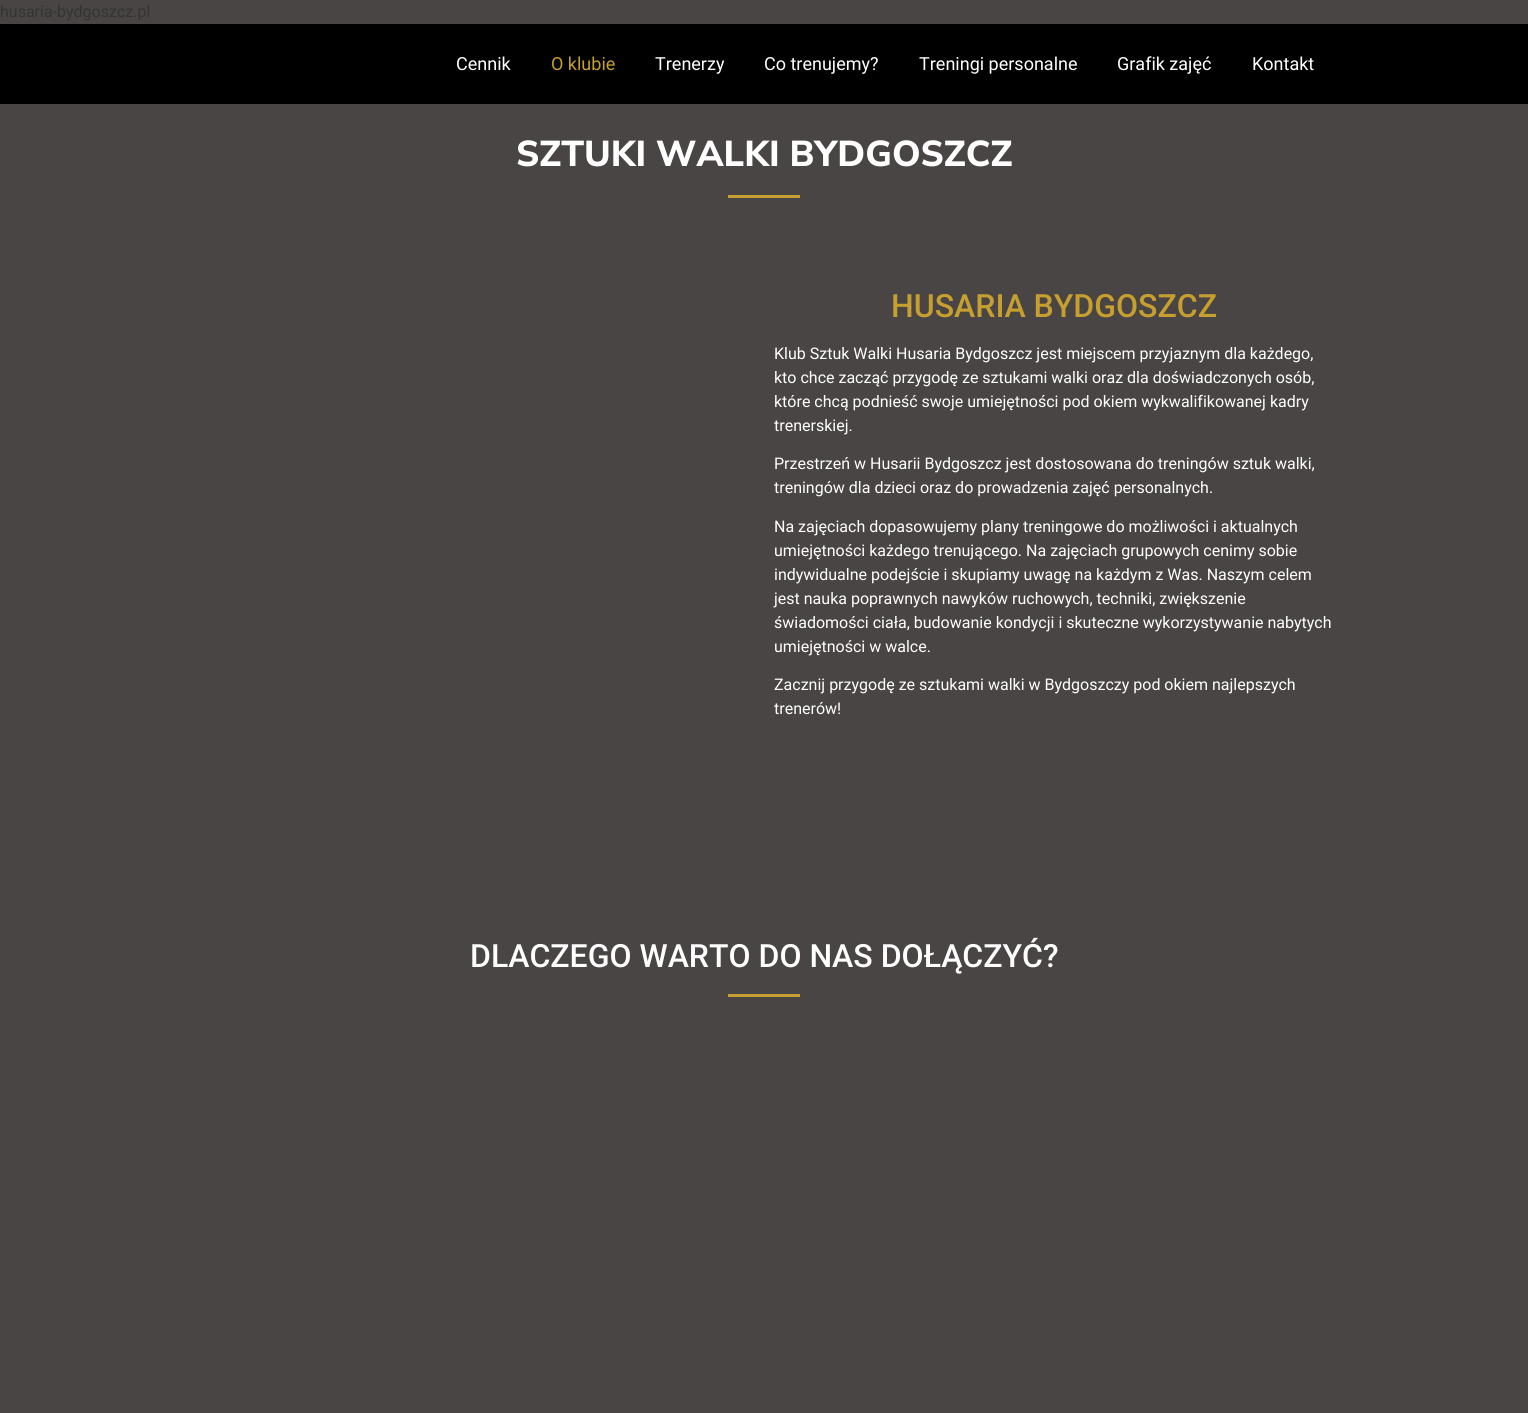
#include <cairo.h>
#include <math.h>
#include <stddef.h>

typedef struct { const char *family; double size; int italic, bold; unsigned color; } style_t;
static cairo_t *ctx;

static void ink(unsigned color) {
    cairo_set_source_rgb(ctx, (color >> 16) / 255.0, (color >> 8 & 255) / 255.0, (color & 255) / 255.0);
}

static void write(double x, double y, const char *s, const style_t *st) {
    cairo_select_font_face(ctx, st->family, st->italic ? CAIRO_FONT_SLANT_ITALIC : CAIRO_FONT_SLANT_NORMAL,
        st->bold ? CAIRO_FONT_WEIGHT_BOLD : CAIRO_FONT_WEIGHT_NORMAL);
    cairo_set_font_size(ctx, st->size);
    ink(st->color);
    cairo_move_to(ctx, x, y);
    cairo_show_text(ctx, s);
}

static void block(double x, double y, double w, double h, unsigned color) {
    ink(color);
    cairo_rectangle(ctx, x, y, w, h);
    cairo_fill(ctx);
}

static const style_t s1 = {"Roboto", 16, 0, 0, 0x333333};
static const style_t s2 = {"Roboto", 18, 0, 0, 0xffffff};
static const style_t s3 = {"Roboto", 18, 0, 0, 0xc79f2e};
static const style_t s4 = {"Nunito Sans ExtraBold", 36, 0, 0, 0xffffff};
static const style_t s5 = {"Roboto Medium", 32, 0, 0, 0xc79f2e};
static const style_t s6 = {"Roboto", 16, 0, 0, 0xffffff};
static const style_t s7 = {"Roboto Medium", 32, 0, 0, 0xffffff};

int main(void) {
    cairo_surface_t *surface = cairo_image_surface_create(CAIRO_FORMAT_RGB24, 1528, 1413);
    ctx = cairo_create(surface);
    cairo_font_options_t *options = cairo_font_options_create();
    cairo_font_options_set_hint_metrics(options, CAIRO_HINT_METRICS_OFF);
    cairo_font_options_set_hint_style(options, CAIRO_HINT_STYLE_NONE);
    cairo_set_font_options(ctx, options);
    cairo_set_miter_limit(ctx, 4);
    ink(0x494544);
    cairo_paint(ctx);
    write(0, 17, "husaria-bydgoszcz.pl", &s1);
    block(0, 24, 1528, 80, 0x000000);
    write(456, 70, "Cennik", &s2);
    write(551, 70, "O klubie", &s3);
    write(655, 70, "Trenerzy", &s2);
    write(764, 70, "Co trenujemy?", &s2);
    write(919, 70, "Treningi personalne", &s2);
    write(1117, 70, "Grafik zajęć", &s2);
    write(1252, 70, "Kontakt", &s2);
    write(516, 166, "SZTUKI WALKI BYDGOSZCZ", &s4);
    block(728, 195, 72, 3, 0xc79f2e);
    write(891, 317, "HUSARIA BYDGOSZCZ", &s5);
    write(774, 359, "Klub Sztuk Walki Husaria Bydgoszcz jest miejscem przyjaznym dla każdego,", &s6);
    write(774, 383, "kto chce zacząć przygodę ze sztukami walki oraz dla doświadczonych osób,", &s6);
    write(774, 407, "które chcą podnieść swoje umiejętności pod okiem wykwalifikowanej kadry", &s6);
    write(774, 431, "trenerskiej.", &s6);
    write(774, 469, "Przestrzeń w Husarii Bydgoszcz jest dostosowana do treningów sztuk walki,", &s6);
    write(774, 493, "treningów dla dzieci oraz do prowadzenia zajęć personalnych.", &s6);
    write(774, 532, "Na zajęciach dopasowujemy plany treningowe do możliwości i aktualnych", &s6);
    write(774, 556, "umiejętności każdego trenującego. Na zajęciach grupowych cenimy sobie", &s6);
    write(774, 580, "indywidualne podejście i skupiamy uwagę na każdym z Was. Naszym celem", &s6);
    write(774, 604, "jest nauka poprawnych nawyków ruchowych, techniki, zwiększenie", &s6);
    write(774, 628, "świadomości ciała, budowanie kondycji i skuteczne wykorzystywanie nabytych", &s6);
    write(774, 652, "umiejętności w walce.", &s6);
    write(774, 690, "Zacznij przygodę ze sztukami walki w Bydgoszczy pod okiem najlepszych", &s6);
    write(774, 714, "trenerów!", &s6);
    write(470, 967, "DLACZEGO WARTO DO NAS DOŁĄCZYĆ?", &s7);
    block(728, 994, 72, 3, 0xc79f2e);
    cairo_surface_write_to_png(surface, "screenshot.png");
    cairo_font_options_destroy(options);
    cairo_destroy(ctx);
    cairo_surface_destroy(surface);
    return 0;
}
